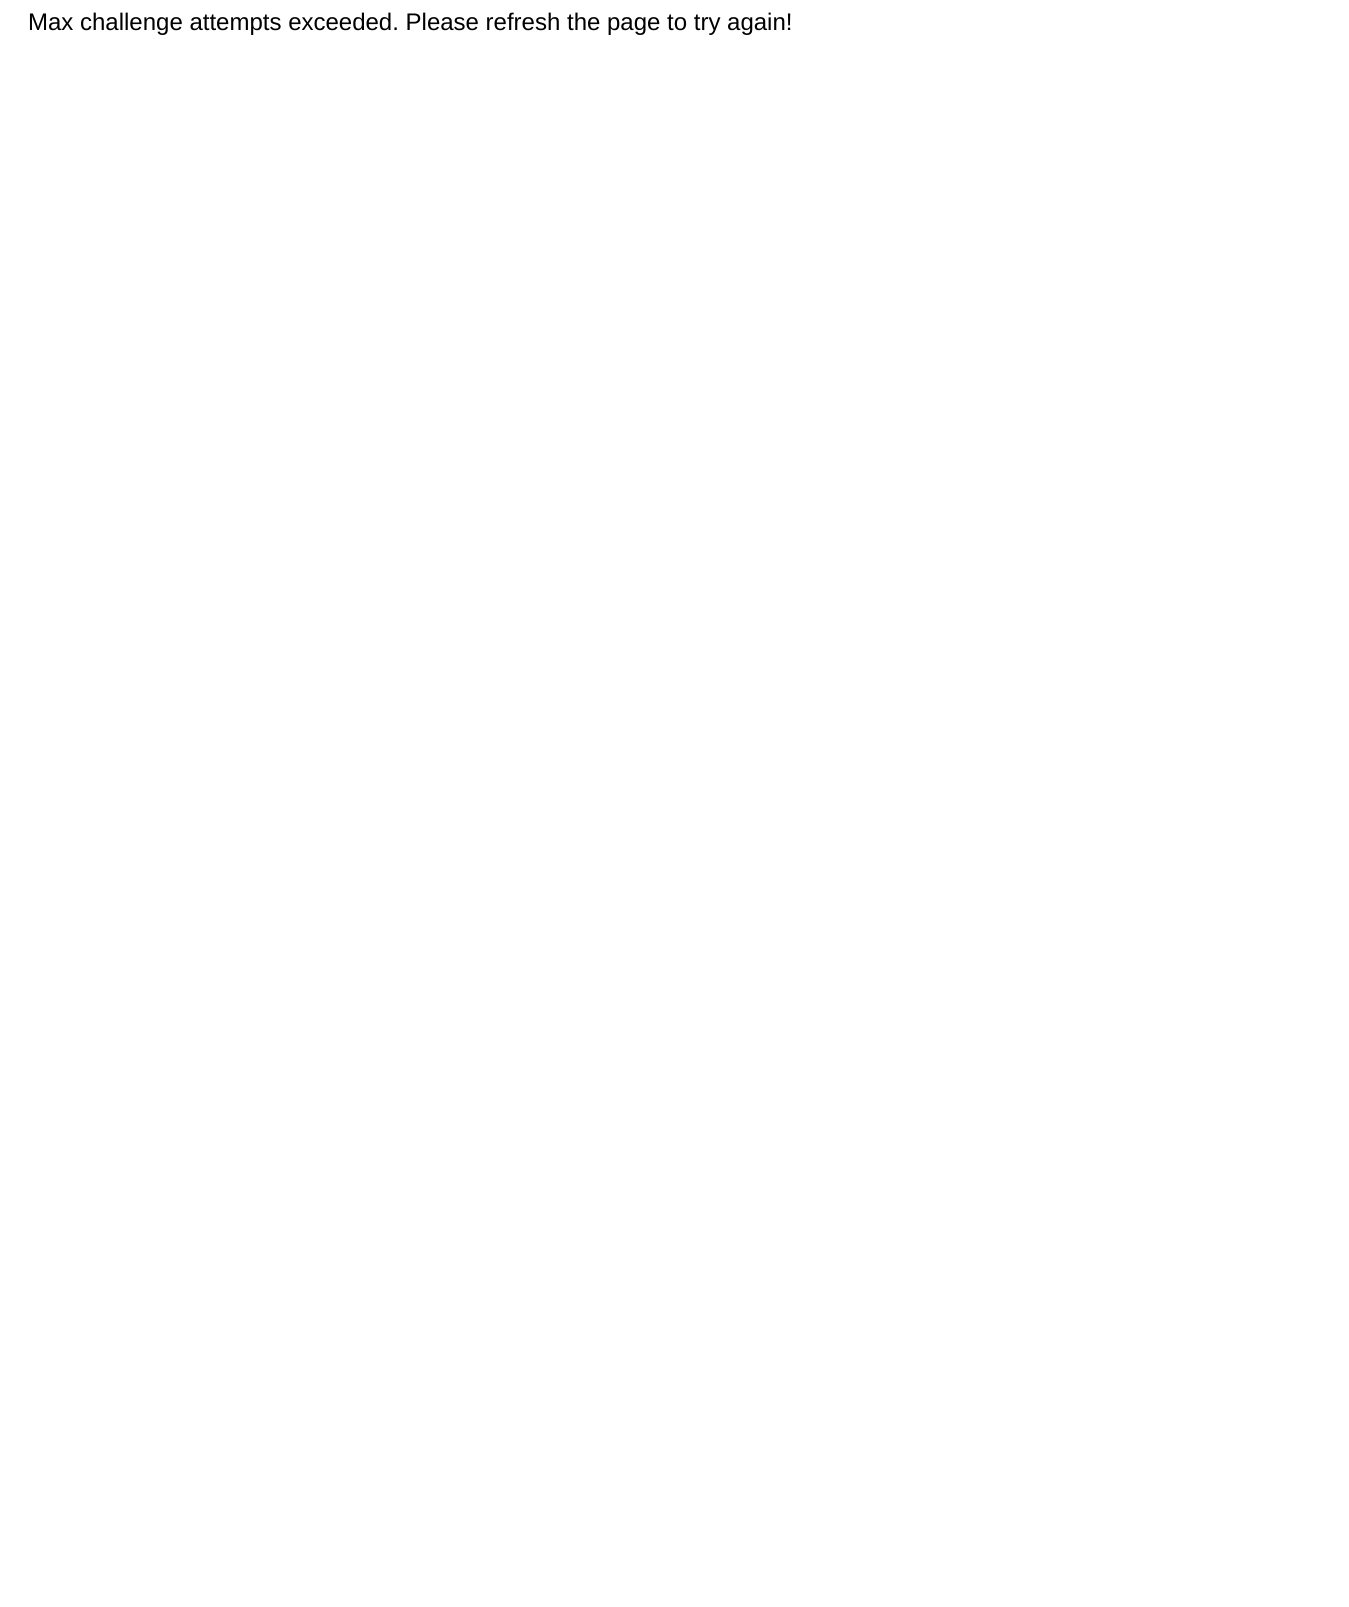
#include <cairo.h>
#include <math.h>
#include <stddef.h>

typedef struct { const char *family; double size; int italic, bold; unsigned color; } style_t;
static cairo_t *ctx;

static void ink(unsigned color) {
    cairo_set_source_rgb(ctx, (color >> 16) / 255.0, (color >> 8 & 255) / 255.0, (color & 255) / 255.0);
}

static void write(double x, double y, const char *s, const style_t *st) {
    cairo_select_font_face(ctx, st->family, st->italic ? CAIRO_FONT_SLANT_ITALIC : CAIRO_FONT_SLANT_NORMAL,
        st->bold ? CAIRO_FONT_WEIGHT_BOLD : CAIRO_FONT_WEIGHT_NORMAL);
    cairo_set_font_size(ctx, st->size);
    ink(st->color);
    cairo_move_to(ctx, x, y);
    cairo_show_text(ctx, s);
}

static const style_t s1 = {"Liberation Sans", 24, 0, 0, 0x000000};

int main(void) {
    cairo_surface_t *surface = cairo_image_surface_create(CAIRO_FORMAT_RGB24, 1349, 1607);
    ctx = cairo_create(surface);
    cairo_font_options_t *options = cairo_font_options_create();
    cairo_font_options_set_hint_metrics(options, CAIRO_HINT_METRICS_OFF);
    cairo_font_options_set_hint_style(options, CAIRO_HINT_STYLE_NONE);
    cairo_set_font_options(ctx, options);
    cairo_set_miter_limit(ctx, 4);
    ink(0xffffff);
    cairo_paint(ctx);
    write(28, 30, "Max challenge attempts exceeded. Please refresh the page to try again!", &s1);
    cairo_surface_write_to_png(surface, "screenshot.png");
    cairo_font_options_destroy(options);
    cairo_destroy(ctx);
    cairo_surface_destroy(surface);
    return 0;
}
